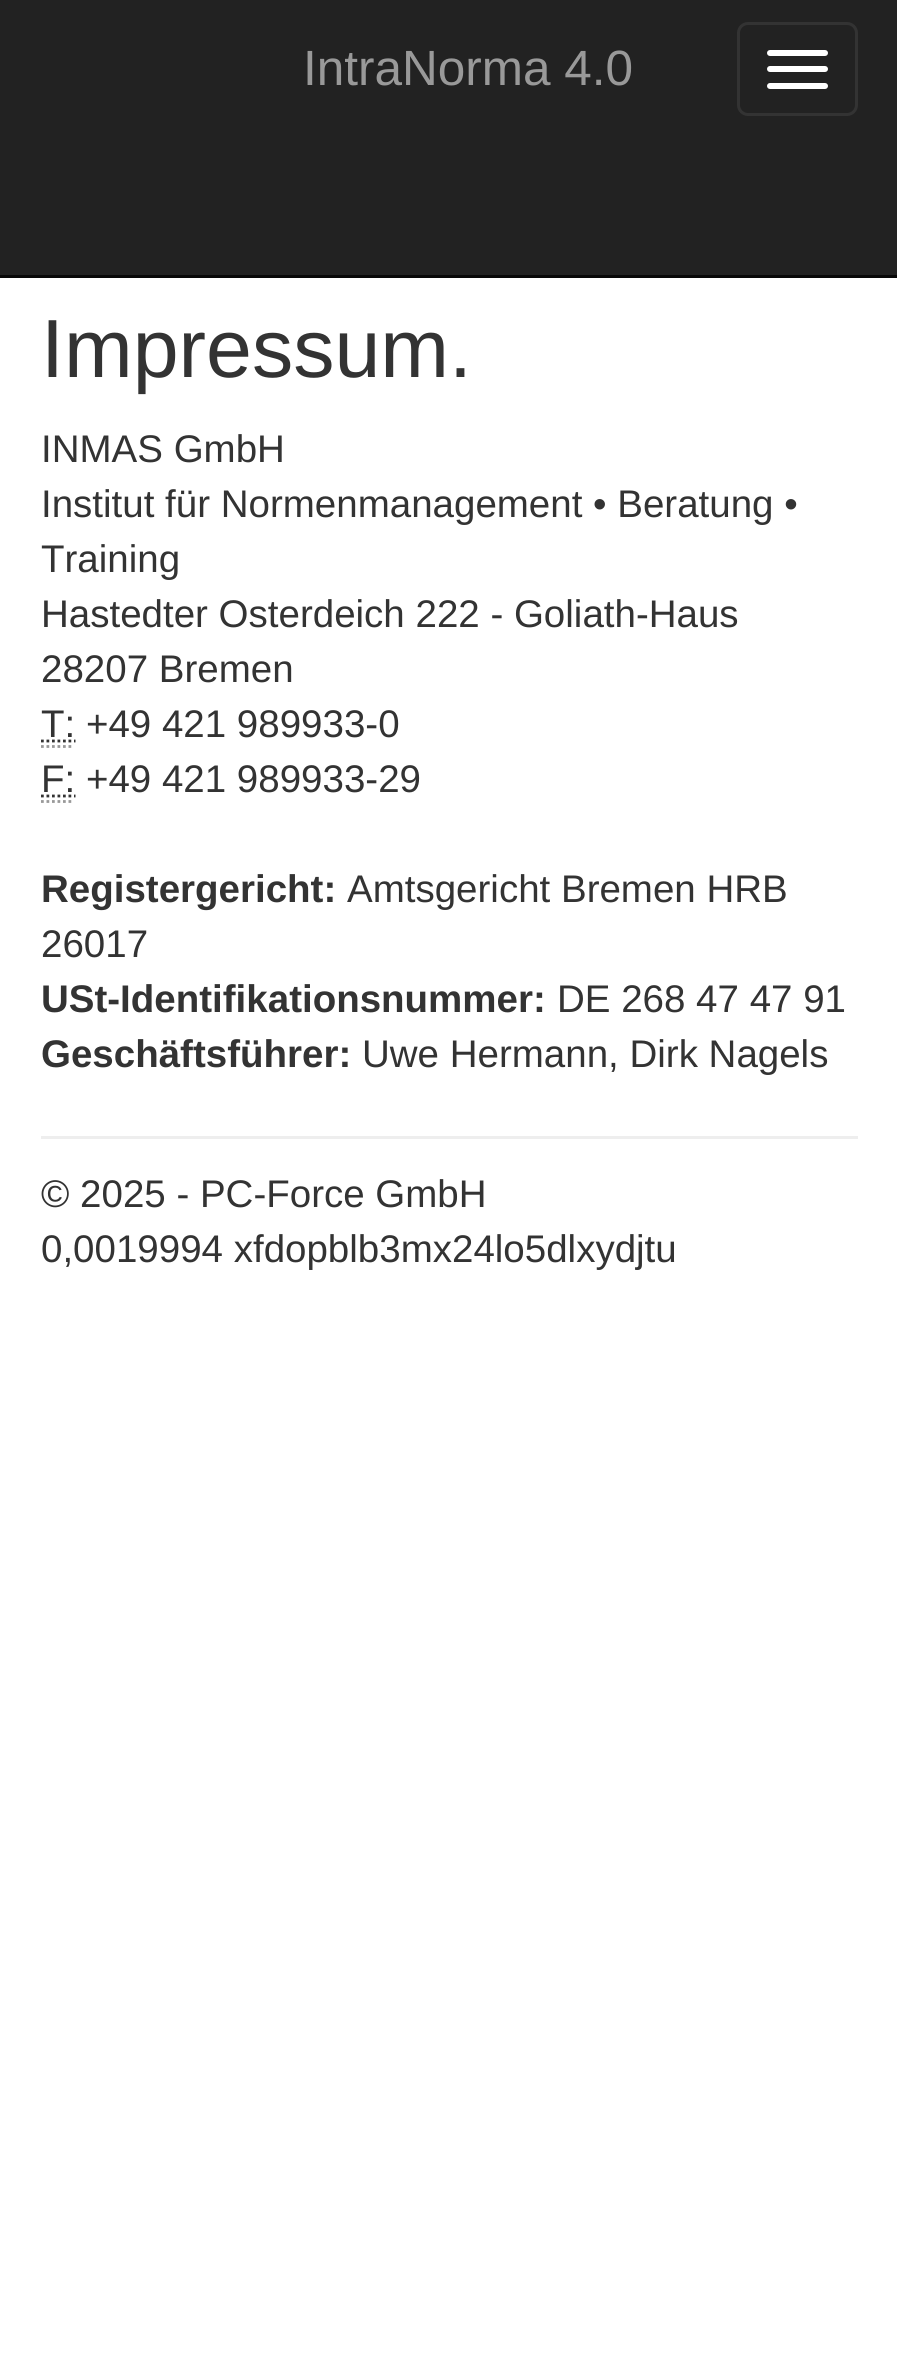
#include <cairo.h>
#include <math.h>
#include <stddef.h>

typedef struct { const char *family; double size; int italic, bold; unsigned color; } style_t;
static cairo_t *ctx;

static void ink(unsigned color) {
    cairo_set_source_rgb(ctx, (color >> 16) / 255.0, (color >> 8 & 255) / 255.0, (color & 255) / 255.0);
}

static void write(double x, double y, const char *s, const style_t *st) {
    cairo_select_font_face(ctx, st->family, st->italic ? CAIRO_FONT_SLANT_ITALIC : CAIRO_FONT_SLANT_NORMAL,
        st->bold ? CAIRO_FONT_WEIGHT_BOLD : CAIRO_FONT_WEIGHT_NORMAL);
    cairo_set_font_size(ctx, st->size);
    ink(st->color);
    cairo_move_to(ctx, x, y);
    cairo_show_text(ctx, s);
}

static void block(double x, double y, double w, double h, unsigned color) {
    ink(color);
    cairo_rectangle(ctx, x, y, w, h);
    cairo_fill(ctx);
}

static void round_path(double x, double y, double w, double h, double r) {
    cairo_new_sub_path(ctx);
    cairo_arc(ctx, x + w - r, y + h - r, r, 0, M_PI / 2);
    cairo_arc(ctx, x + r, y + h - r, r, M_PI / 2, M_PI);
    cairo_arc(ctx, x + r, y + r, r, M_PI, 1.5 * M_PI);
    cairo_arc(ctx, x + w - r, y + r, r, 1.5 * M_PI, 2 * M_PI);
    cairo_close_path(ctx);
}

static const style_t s1 = {"Liberation Sans", 49.5, 0, 0, 0x999999};
static const style_t s2 = {"Liberation Sans", 82.5, 0, 0, 0x333333};
static const style_t s3 = {"Liberation Sans", 38.5, 0, 0, 0x333333};
static const style_t s4 = {"Liberation Sans", 38.5, 0, 1, 0x333333};

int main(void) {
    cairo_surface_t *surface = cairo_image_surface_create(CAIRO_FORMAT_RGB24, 897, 2369);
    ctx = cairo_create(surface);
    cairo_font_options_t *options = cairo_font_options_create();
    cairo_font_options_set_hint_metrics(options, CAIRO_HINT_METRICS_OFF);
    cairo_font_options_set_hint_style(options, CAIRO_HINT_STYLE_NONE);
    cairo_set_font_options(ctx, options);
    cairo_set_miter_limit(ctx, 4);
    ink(0xffffff);
    cairo_paint(ctx);
    block(0, 0, 897, 275, 0x222222);
    block(0, 275, 897, 3, 0x080808);
    write(303, 85, "IntraNorma 4.0", &s1);
    round_path(738.5, 23.5, 118, 91, 9.5);
    ink(0x333333);
    cairo_set_line_width(ctx, 3);
    cairo_stroke(ctx);
    ink(0xffffff);
    round_path(767, 50, 61, 6, 3);
    cairo_fill(ctx);
    round_path(767, 66, 61, 6, 3);
    cairo_fill(ctx);
    round_path(767, 83, 61, 6, 3);
    cairo_fill(ctx);
    write(41, 377, "Impressum.", &s2);
    write(41, 462, "INMAS GmbH", &s3);
    write(41, 517, "Institut für Normenmanagement • Beratung •", &s3);
    write(41, 572, "Training", &s3);
    write(41, 627, "Hastedter Osterdeich 222 - Goliath-Haus", &s3);
    write(41, 682, "28207 Bremen", &s3);
    write(41, 737, "T: +49 421 989933-0", &s3);
    cairo_new_path(ctx);
    cairo_move_to(ctx, 41, 746.5);
    cairo_line_to(ctx, 74, 746.5);
    ink(0x999999);
    cairo_set_line_width(ctx, 2.8);
    cairo_set_dash(ctx, (double[]){2.75, 2.75}, 2, 0);
    cairo_stroke(ctx);
    cairo_new_path(ctx);
    cairo_move_to(ctx, 41, 741);
    cairo_line_to(ctx, 75.5, 741);
    ink(0x333333);
    cairo_stroke(ctx);
    write(41, 792, "F: +49 421 989933-29", &s3);
    cairo_new_path(ctx);
    cairo_move_to(ctx, 41, 801.5);
    cairo_line_to(ctx, 74, 801.5);
    ink(0x999999);
    cairo_stroke(ctx);
    cairo_new_path(ctx);
    cairo_move_to(ctx, 41, 796);
    cairo_line_to(ctx, 75.5, 796);
    ink(0x333333);
    cairo_stroke(ctx);
    write(41, 902, "Registergericht:", &s4);
    write(347, 902, "Amtsgericht Bremen HRB", &s3);
    write(41, 957, "26017", &s3);
    write(41, 1012, "USt-Identifikationsnummer:", &s4);
    write(557, 1012, "DE 268 47 47 91", &s3);
    write(41, 1067, "Geschäftsführer:", &s4);
    write(362, 1067, "Uwe Hermann, Dirk Nagels", &s3);
    block(41, 1136, 817, 3, 0xeeeeee);
    write(41, 1207, "© 2025 - PC-Force GmbH", &s3);
    write(41, 1262, "0,0019994 xfdopblb3mx24lo5dlxydjtu", &s3);
    cairo_surface_write_to_png(surface, "screenshot.png");
    cairo_font_options_destroy(options);
    cairo_destroy(ctx);
    cairo_surface_destroy(surface);
    return 0;
}
